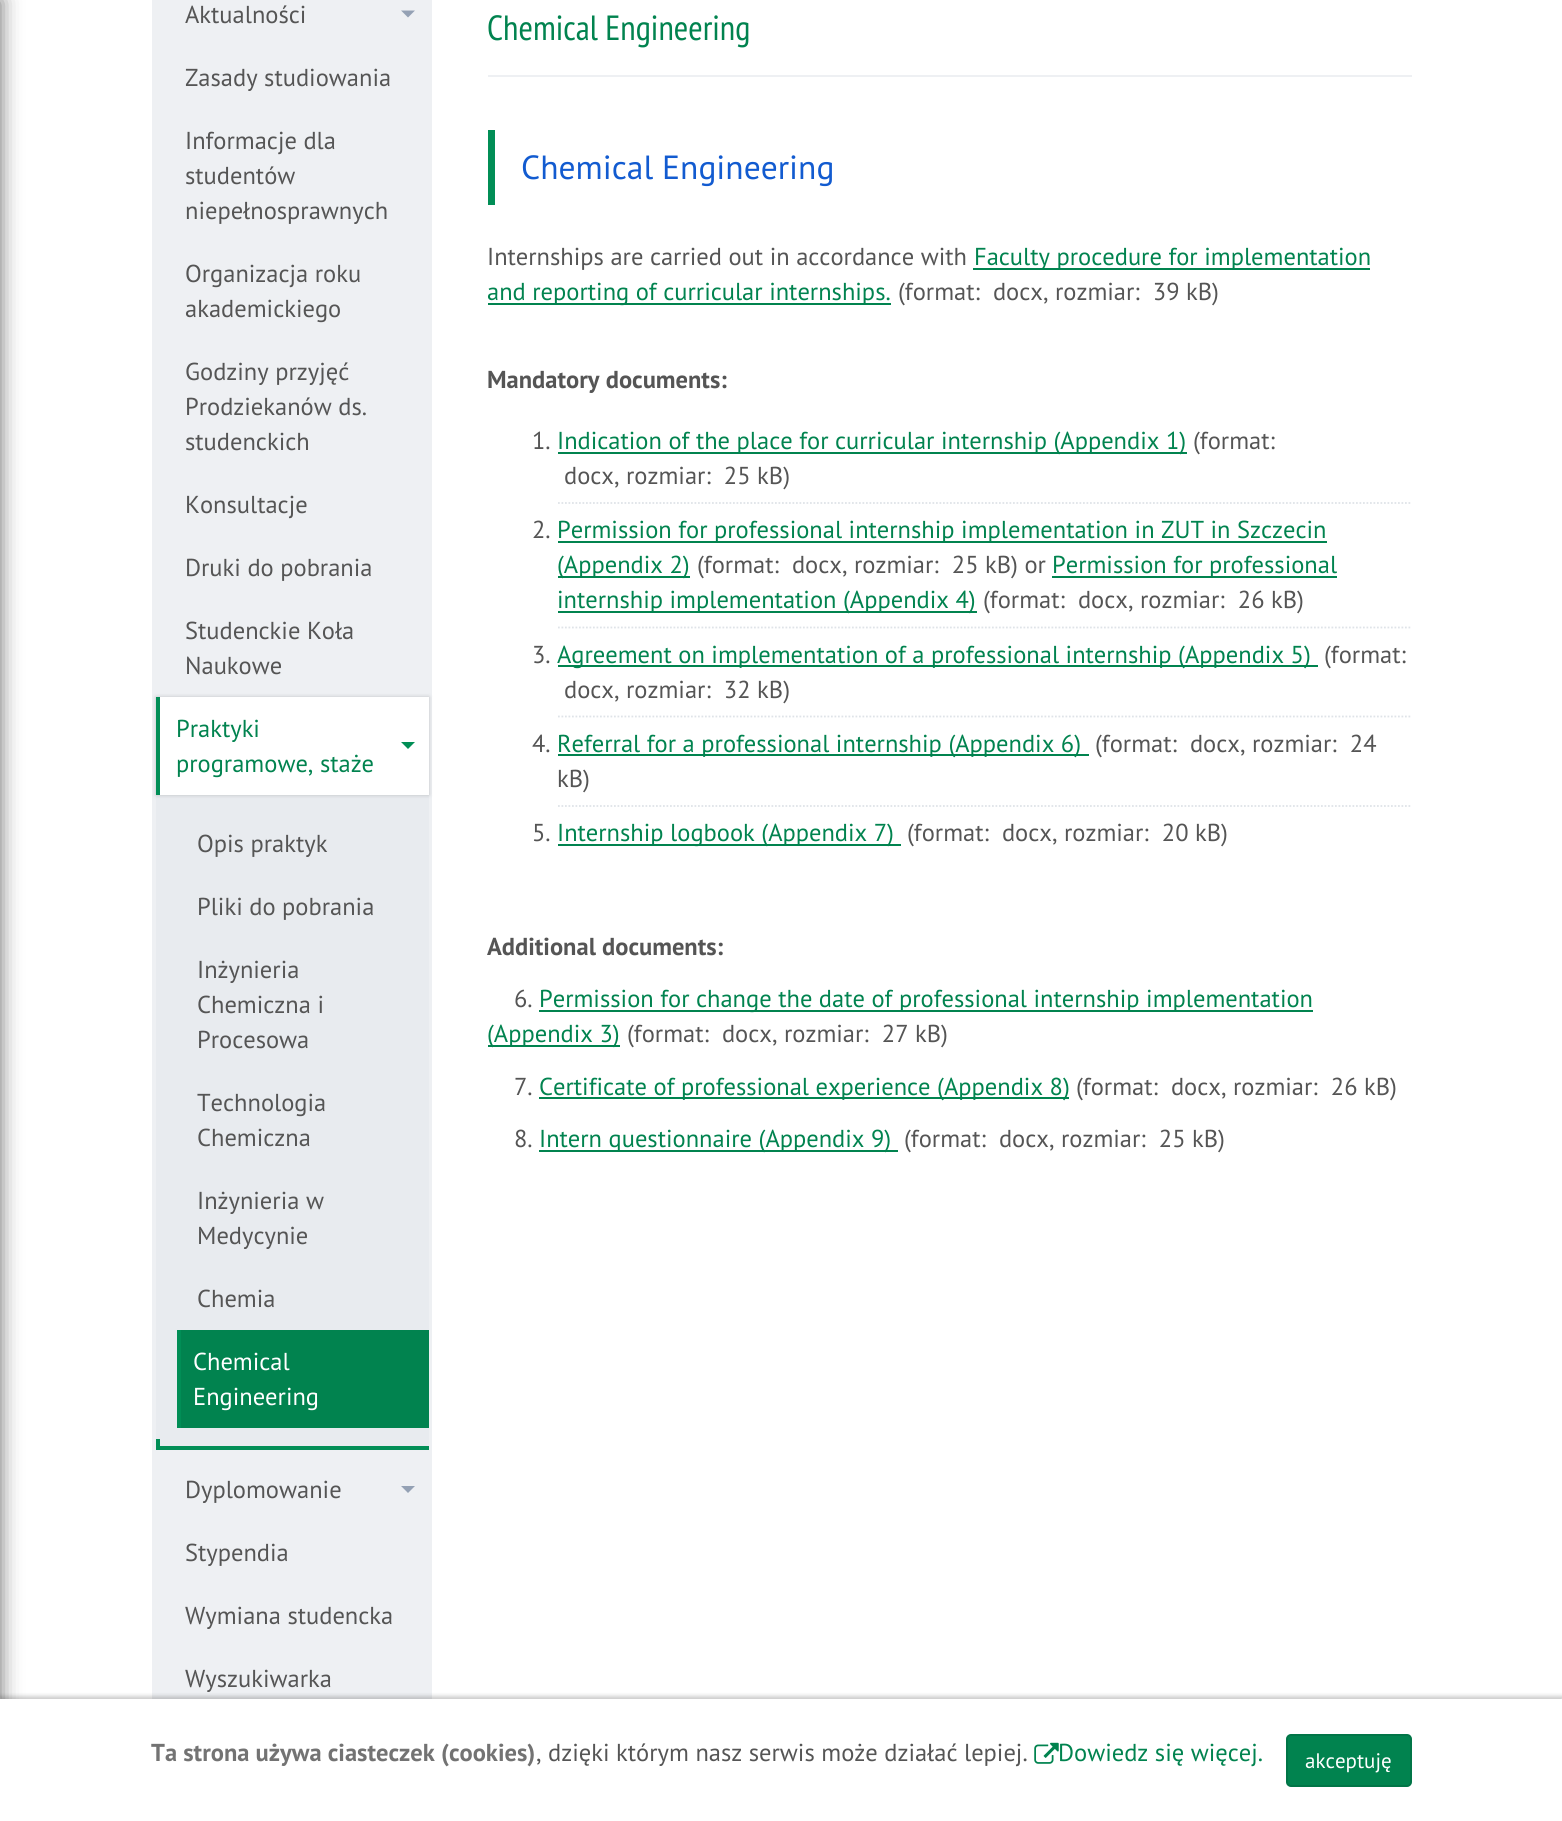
#include <cairo.h>
#include <math.h>
#include <stddef.h>

typedef struct { const char *family; double size; int italic, bold; unsigned color; } style_t;
static cairo_t *ctx;

static void ink(unsigned color) {
    cairo_set_source_rgb(ctx, (color >> 16) / 255.0, (color >> 8 & 255) / 255.0, (color & 255) / 255.0);
}

static void write(double x, double y, const char *s, const style_t *st) {
    cairo_select_font_face(ctx, st->family, st->italic ? CAIRO_FONT_SLANT_ITALIC : CAIRO_FONT_SLANT_NORMAL,
        st->bold ? CAIRO_FONT_WEIGHT_BOLD : CAIRO_FONT_WEIGHT_NORMAL);
    cairo_set_font_size(ctx, st->size);
    ink(st->color);
    cairo_move_to(ctx, x, y);
    cairo_show_text(ctx, s);
}

static void block(double x, double y, double w, double h, unsigned color) {
    ink(color);
    cairo_rectangle(ctx, x, y, w, h);
    cairo_fill(ctx);
}

static void round_path(double x, double y, double w, double h, double r) {
    cairo_new_sub_path(ctx);
    cairo_arc(ctx, x + w - r, y + h - r, r, 0, M_PI / 2);
    cairo_arc(ctx, x + r, y + h - r, r, M_PI / 2, M_PI);
    cairo_arc(ctx, x + r, y + r, r, M_PI, 1.5 * M_PI);
    cairo_arc(ctx, x + w - r, y + r, r, 1.5 * M_PI, 2 * M_PI);
    cairo_close_path(ctx);
}

static void blur_box(double x, double y, double w, double h, double r, double blur, double alpha) {
    cairo_push_group_with_content(ctx, CAIRO_CONTENT_ALPHA);
    cairo_set_operator(ctx, CAIRO_OPERATOR_SOURCE);
    for (int i = 15; i >= -15 && fmin(w, h) + blur * i / 3 > 0; i -= 2) {
        double e = blur * i / 6;
        cairo_set_source_rgba(ctx, 0, 0, 0, alpha * erfc((i - 1) / 8.5) / 2);
        round_path(x - e, y - e, w + 2 * e, h + 2 * e, fmax(0, fmin(r + e + blur * .6, fmin(w, h) / 2 + e)));
        cairo_fill(ctx);
    }
    cairo_pattern_t *soft = cairo_pop_group(ctx);
    cairo_mask(ctx, soft);
    cairo_pattern_destroy(soft);
}

static void paste(const char *path, double x, double y, double w, double h) {
    cairo_surface_t *image = cairo_image_surface_create_from_png(path);
    cairo_save(ctx);
    cairo_set_source_surface(ctx, image, x, y);
    cairo_rectangle(ctx, x, y, w, h);
    cairo_fill(ctx);
    cairo_restore(ctx);
    cairo_surface_destroy(image);
}

static const style_t s1 = {"PT Sans", 24.5, 0, 0, 0x555555};
static const style_t s2 = {"PT Sans", 24.5, 0, 0, 0x01834f};
static const style_t s3 = {"PT Sans", 24.5, 0, 0, 0xffffff};
static const style_t s4 = {"PT Sans Narrow", 35, 0, 0, 0x01834f};
static const style_t s5 = {"PT Sans", 33.5, 0, 0, 0x125bd0};
static const style_t s6 = {"PT Sans", 24.5, 0, 1, 0x555555};
static const style_t s7 = {"PT Sans", 24.5, 0, 1, 0x737373};
static const style_t s8 = {"PT Sans", 21, 0, 0, 0xffffff};

int main(void) {
    cairo_surface_t *surface = cairo_image_surface_create(CAIRO_FORMAT_RGB24, 1562, 1821);
    ctx = cairo_create(surface);
    cairo_font_options_t *options = cairo_font_options_create();
    cairo_font_options_set_hint_metrics(options, CAIRO_HINT_METRICS_OFF);
    cairo_font_options_set_hint_style(options, CAIRO_HINT_STYLE_NONE);
    cairo_set_font_options(ctx, options);
    cairo_set_miter_limit(ctx, 4);
    ink(0xffffff);
    cairo_paint(ctx);
    ink(0x000000);
    blur_box(-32, 0, 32, 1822, 0, 10.5, 0.6);
    block(152, 0, 280, 1699, 0xeef0f3);
    write(185, 23, "Aktualności", &s1);
    ink(0x94a1b4);
    cairo_new_path(ctx);
    cairo_move_to(ctx, 401, 10.5);
    cairo_line_to(ctx, 415, 10.5);
    cairo_line_to(ctx, 408, 17.5);
    cairo_close_path(ctx);
    cairo_fill(ctx);
    write(185, 86, "Zasady studiowania", &s1);
    write(185, 149, "Informacje dla", &s1);
    write(185, 184, "studentów", &s1);
    write(185, 219, "niepełnosprawnych", &s1);
    write(185, 282, "Organizacja roku", &s1);
    write(185, 317, "akademickiego", &s1);
    write(185, 380, "Godziny przyjęć", &s1);
    write(185, 415, "Prodziekanów ds.", &s1);
    write(185, 450, "studenckich", &s1);
    write(185, 513, "Konsultacje", &s1);
    write(185, 576, "Druki do pobrania", &s1);
    write(185, 639, "Studenckie Koła", &s1);
    write(185, 674, "Naukowe", &s1);
    block(156, 795, 273, 651, 0xe8ebef);
    block(156, 1446, 273, 4, 0x018e56);
    ink(0x000000);
    blur_box(156, 697, 273, 98, 0, 2, 0.2);
    block(160, 697, 269, 98, 0xffffff);
    block(156, 697, 4, 98, 0x018e56);
    write(176, 737, "Praktyki", &s2);
    ink(0x018e56);
    cairo_new_path(ctx);
    cairo_move_to(ctx, 401, 742);
    cairo_line_to(ctx, 415, 742);
    cairo_line_to(ctx, 408, 749);
    cairo_close_path(ctx);
    cairo_fill(ctx);
    write(176, 772, "programowe, staże", &s2);
    write(197, 852, "Opis praktyk", &s1);
    write(197, 915, "Pliki do pobrania", &s1);
    write(197, 978, "Inżynieria", &s1);
    write(197, 1013, "Chemiczna i", &s1);
    write(197, 1048, "Procesowa", &s1);
    write(197, 1111, "Technologia", &s1);
    write(197, 1146, "Chemiczna", &s1);
    write(197, 1209, "Inżynieria w", &s1);
    write(197, 1244, "Medycynie", &s1);
    write(197, 1307, "Chemia", &s1);
    block(181, 1330, 248, 98, 0x01834f);
    block(177, 1330, 4, 98, 0x018e56);
    write(193, 1370, "Chemical", &s3);
    write(193, 1405, "Engineering", &s3);
    block(156, 1439, 4, 7, 0x018e56);
    write(185, 1498, "Dyplomowanie", &s1);
    ink(0x94a1b4);
    cairo_new_path(ctx);
    cairo_move_to(ctx, 401, 1486);
    cairo_line_to(ctx, 415, 1486);
    cairo_line_to(ctx, 408, 1493);
    cairo_close_path(ctx);
    cairo_fill(ctx);
    write(185, 1561, "Stypendia", &s1);
    write(185, 1624, "Wymiana studencka", &s1);
    write(185, 1687, "Wyszukiwarka", &s1);
    block(488, 75, 924, 2, 0xeef0f3);
    write(487, 40, "Chemical Engineering", &s4);
    block(488, 130, 7, 75, 0x018e56);
    write(521, 179, "Chemical Engineering", &s5);
    write(487, 265, "Internships are carried out in accordance with", &s1);
    block(973, 268, 397, 2, 0x01834f);
    write(974, 265, "Faculty procedure for implementation", &s2);
    block(488, 303, 403, 2, 0x01834f);
    write(487, 300, "and reporting of curricular internships.", &s2);
    write(898, 300, "(format:  docx, rozmiar:  39 kB)", &s1);
    write(487, 388, "Mandatory documents:", &s6);
    cairo_new_path(ctx);
    cairo_move_to(ctx, 558, 503);
    cairo_line_to(ctx, 1412, 503);
    ink(0xdfe3e8);
    cairo_set_line_width(ctx, 1.8);
    cairo_set_dash(ctx, (double[]){1.75, 1.75}, 2, 0);
    cairo_stroke(ctx);
    write(532, 449, "1.", &s1);
    block(558, 452, 629, 2, 0x01834f);
    write(557, 449, "Indication of the place for curricular internship (Appendix 1)", &s2);
    write(1193, 449, "(format:", &s1);
    write(564, 484, "docx, rozmiar:  25 kB)", &s1);
    cairo_new_path(ctx);
    cairo_move_to(ctx, 558, 627.5);
    cairo_line_to(ctx, 1412, 627.5);
    ink(0xdfe3e8);
    cairo_stroke(ctx);
    write(532, 538, "2.", &s1);
    block(558, 541, 769, 2, 0x01834f);
    write(557, 538, "Permission for professional internship implementation in ZUT in Szczecin", &s2);
    block(558, 576, 132, 2, 0x01834f);
    write(557, 573, "(Appendix 2)", &s2);
    write(697, 573, "(format:  docx, rozmiar:  25 kB) or", &s1);
    block(1052, 576, 285, 2, 0x01834f);
    write(1052, 573, "Permission for professional", &s2);
    block(558, 611, 419, 2, 0x01834f);
    write(557, 608, "internship implementation (Appendix 4)", &s2);
    write(983, 608, "(format:  docx, rozmiar:  26 kB)", &s1);
    cairo_new_path(ctx);
    cairo_move_to(ctx, 558, 716.5);
    cairo_line_to(ctx, 1412, 716.5);
    ink(0xdfe3e8);
    cairo_stroke(ctx);
    write(532, 663, "3.", &s1);
    block(558, 665, 760, 2, 0x01834f);
    write(557, 663, "Agreement on implementation of a professional internship (Appendix 5)", &s2);
    write(1324, 663, "(format:", &s1);
    write(564, 698, "docx, rozmiar:  32 kB)", &s1);
    cairo_new_path(ctx);
    cairo_move_to(ctx, 558, 806);
    cairo_line_to(ctx, 1412, 806);
    ink(0xdfe3e8);
    cairo_stroke(ctx);
    write(532, 752, "4.", &s1);
    block(558, 754, 531, 2, 0x01834f);
    write(557, 752, "Referral for a professional internship (Appendix 6)", &s2);
    write(1095, 752, "(format:  docx, rozmiar:  24", &s1);
    write(557, 787, "kB)", &s1);
    write(532, 841, "5.", &s1);
    block(558, 844, 343, 2, 0x01834f);
    write(557, 841, "Internship logbook (Appendix 7)", &s2);
    write(907, 841, "(format:  docx, rozmiar:  20 kB)", &s1);
    write(487, 955, "Additional documents:", &s6);
    write(514, 1007, "6.", &s1);
    block(539, 1010, 774, 2, 0x01834f);
    write(539, 1007, "Permission for change the date of professional internship implementation", &s2);
    block(488, 1045, 132, 2, 0x01834f);
    write(487, 1042, "(Appendix 3)", &s2);
    write(627, 1042, "(format:  docx, rozmiar:  27 kB)", &s1);
    write(514, 1095, "7.", &s1);
    block(539, 1097, 530, 2, 0x01834f);
    write(539, 1095, "Certificate of professional experience (Appendix 8)", &s2);
    write(1076, 1095, "(format:  docx, rozmiar:  26 kB)", &s1);
    write(514, 1147, "8.", &s1);
    block(539, 1150, 359, 2, 0x01834f);
    write(539, 1147, "Intern questionnaire (Appendix 9)", &s2);
    write(904, 1147, "(format:  docx, rozmiar:  25 kB)", &s1);
    ink(0x000000);
    blur_box(0, 1696, 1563, 122, 0, 2, 0.2);
    block(0, 1699, 1562, 122, 0xffffff);
    write(151, 1761, "Ta strona używa ciasteczek (cookies)", &s7);
    write(536, 1761, ", dzięki którym nasz serwis może działać lepiej.", &s1);
    paste("pic1.png", 1034, 1742, 25, 22);
    write(1058, 1761, "Dowiedz się więcej.", &s2);
    round_path(1287, 1735, 124, 51, 4);
    cairo_fill_preserve(ctx);
    ink(0x017547);
    cairo_set_line_width(ctx, 2);
    cairo_set_dash(ctx, NULL, 0, 0);
    cairo_stroke(ctx);
    write(1305, 1768, "akceptuję", &s8);
    cairo_surface_write_to_png(surface, "screenshot.png");
    cairo_font_options_destroy(options);
    cairo_destroy(ctx);
    cairo_surface_destroy(surface);
    return 0;
}
